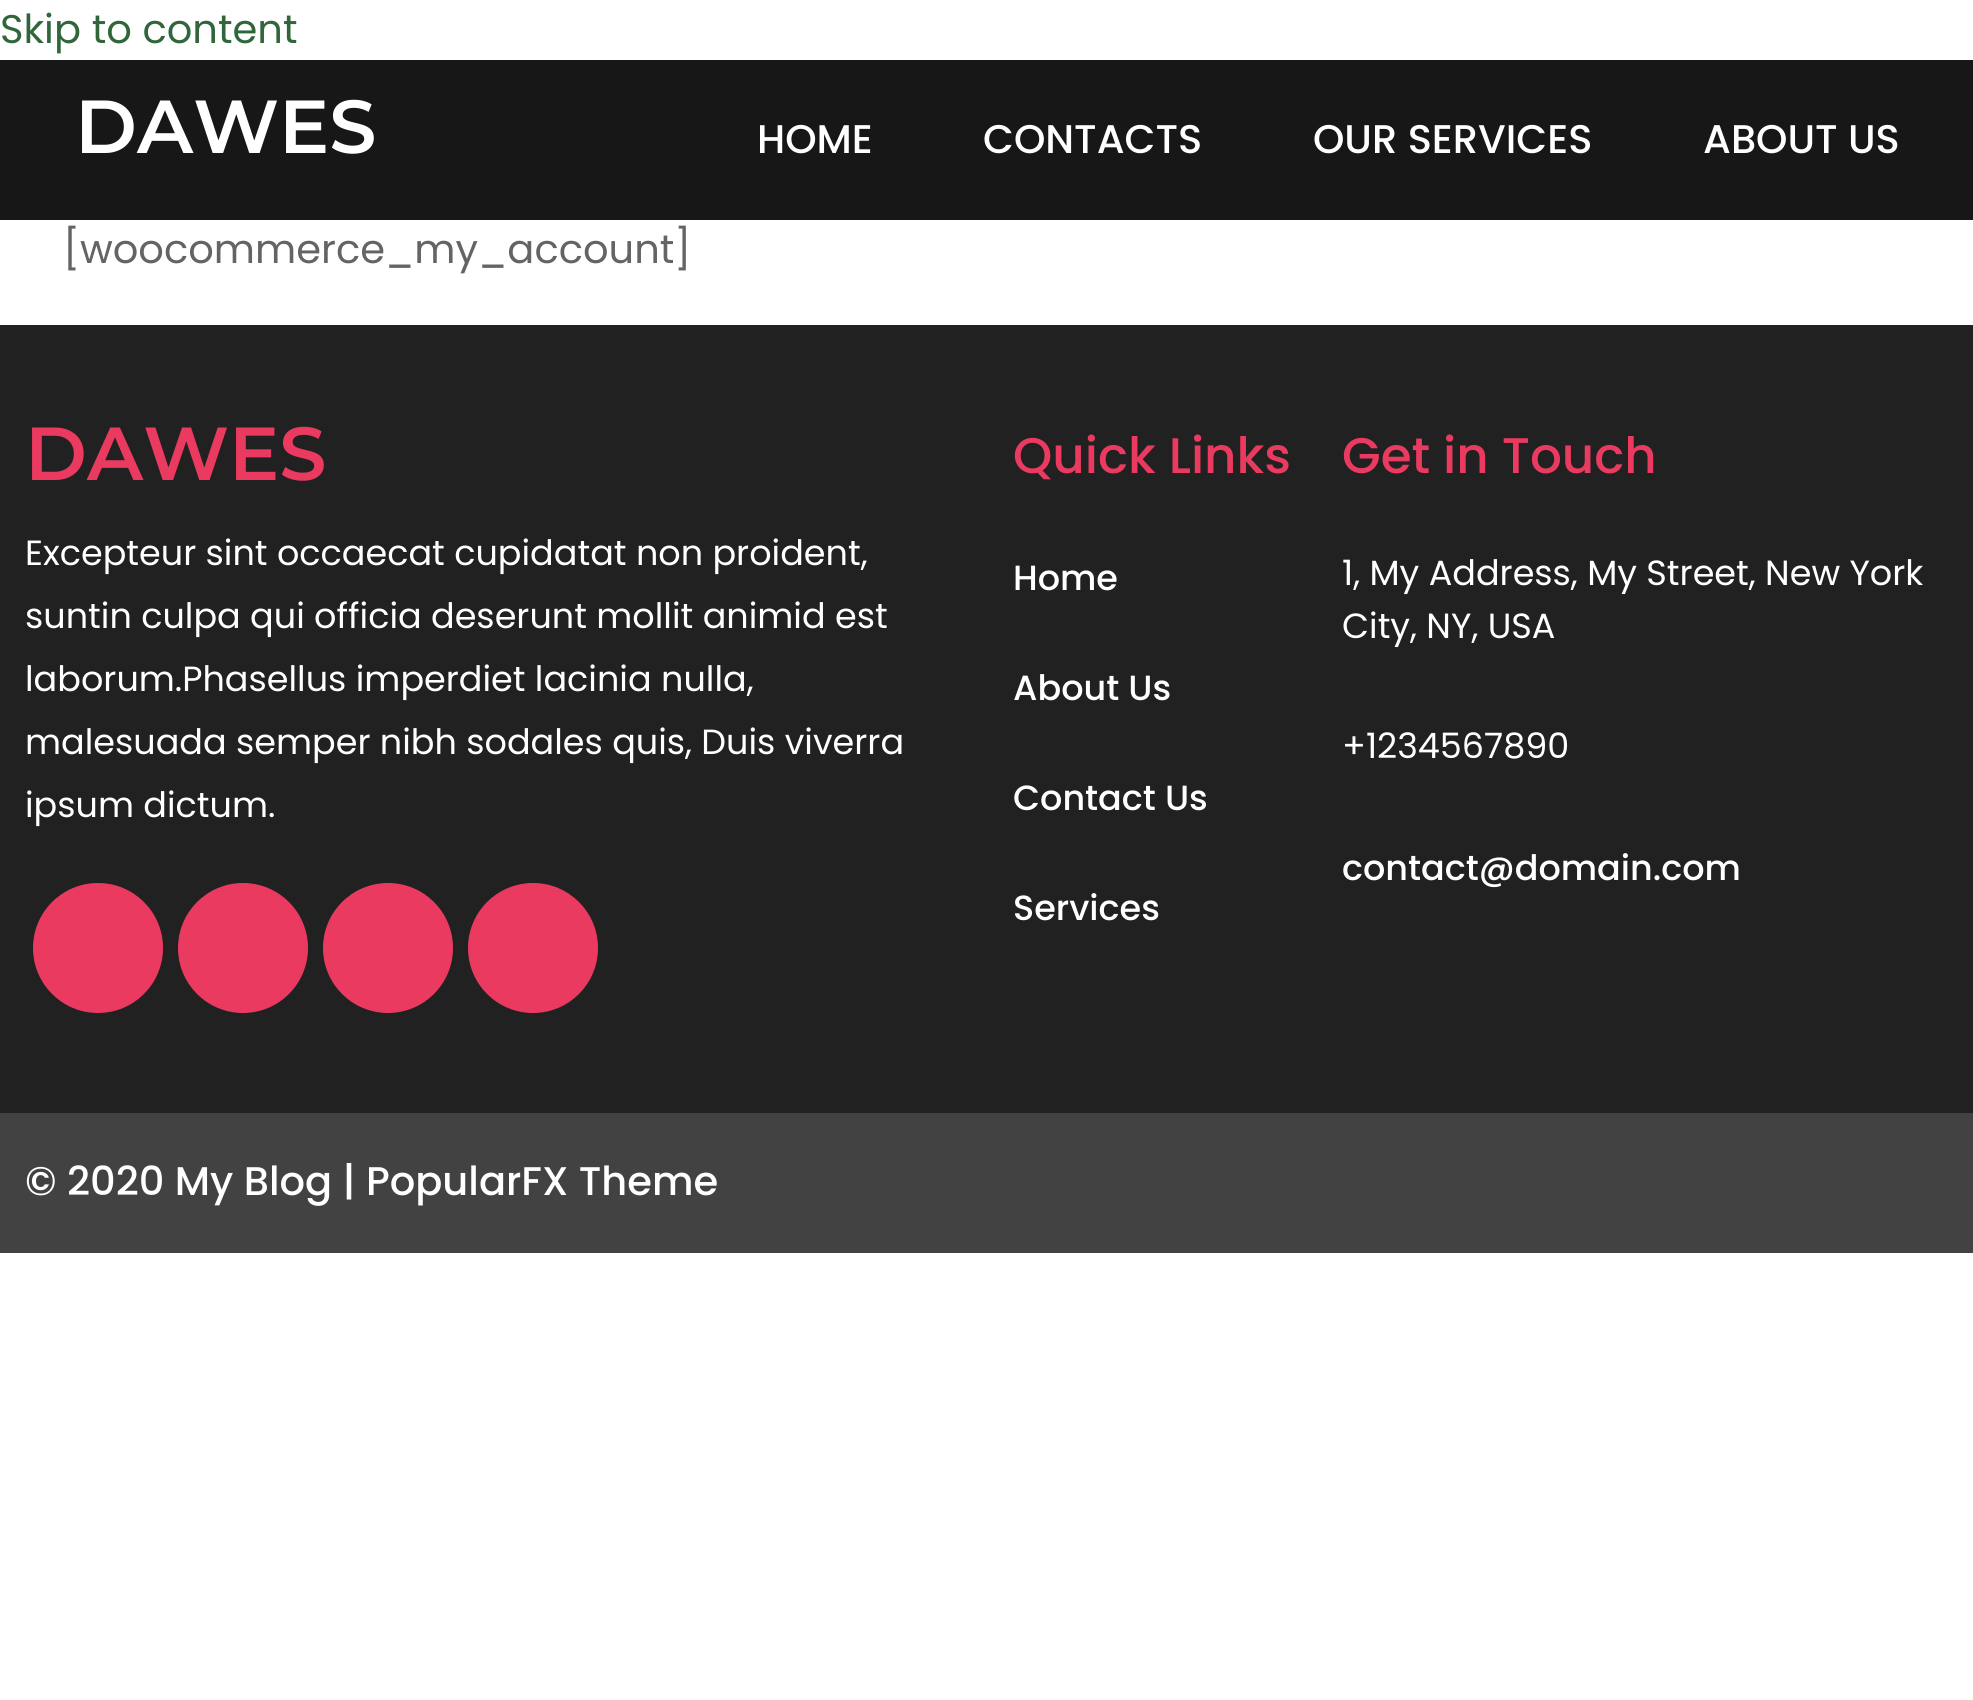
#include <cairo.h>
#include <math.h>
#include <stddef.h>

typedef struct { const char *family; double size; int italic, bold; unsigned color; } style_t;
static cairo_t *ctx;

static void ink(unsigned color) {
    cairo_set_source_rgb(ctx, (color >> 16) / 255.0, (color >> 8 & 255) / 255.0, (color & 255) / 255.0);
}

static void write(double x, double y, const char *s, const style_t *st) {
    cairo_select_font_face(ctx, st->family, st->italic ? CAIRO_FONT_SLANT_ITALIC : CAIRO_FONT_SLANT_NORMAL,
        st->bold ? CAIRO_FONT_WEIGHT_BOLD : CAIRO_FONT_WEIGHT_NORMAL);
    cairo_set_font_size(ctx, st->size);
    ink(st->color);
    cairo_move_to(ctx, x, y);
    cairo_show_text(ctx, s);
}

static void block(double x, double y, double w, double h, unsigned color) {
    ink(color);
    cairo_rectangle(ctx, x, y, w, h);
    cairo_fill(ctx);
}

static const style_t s1 = {"Poppins", 40, 0, 0, 0x31663b};
static const style_t s2 = {"Montserrat Thin", 75, 0, 0, 0xffffff};
static const style_t s3 = {"Poppins Medium", 40, 0, 0, 0xffffff};
static const style_t s4 = {"Poppins", 40, 0, 0, 0x646464};
static const style_t s5 = {"Montserrat Thin", 75, 0, 0, 0xea3a60};
static const style_t s6 = {"Poppins", 35, 0, 0, 0xffffff};
static const style_t s7 = {"Poppins Medium", 50, 0, 0, 0xea3a60};
static const style_t s8 = {"Poppins Medium", 35, 0, 0, 0xffffff};

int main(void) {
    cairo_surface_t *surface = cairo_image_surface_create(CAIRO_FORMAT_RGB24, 1973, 1700);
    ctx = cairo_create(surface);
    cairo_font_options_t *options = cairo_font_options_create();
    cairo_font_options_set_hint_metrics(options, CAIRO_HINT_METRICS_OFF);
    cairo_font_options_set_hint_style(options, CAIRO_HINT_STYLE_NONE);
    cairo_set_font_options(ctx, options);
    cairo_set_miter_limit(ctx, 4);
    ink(0xffffff);
    cairo_paint(ctx);
    write(0, 43, "Skip to content", &s1);
    block(0, 60, 1973, 160, 0x171717);
    write(75, 153, "DAWES", &s2);
    write(757, 153, "HOME", &s3);
    write(983, 153, "CONTACTS", &s3);
    write(1313, 153, "OUR SERVICES", &s3);
    write(1703, 153, "ABOUT US", &s3);
    write(63, 263, "[woocommerce_my_account]", &s4);
    block(0, 325, 1973, 788, 0x212121);
    write(25, 480, "DAWES", &s5);
    write(25, 565, "Excepteur sint occaecat cupidatat non proident,", &s6);
    write(25, 628, "suntin culpa qui officia deserunt mollit animid est", &s6);
    write(25, 691, "laborum.Phasellus imperdiet lacinia nulla,", &s6);
    write(25, 754, "malesuada semper nibh sodales quis, Duis viverra", &s6);
    write(25, 817, "ipsum dictum.", &s6);
    ink(0xea3a60);
    cairo_new_path(ctx);
    cairo_arc(ctx, 98, 948, 65, 0, 2 * M_PI);
    cairo_fill(ctx);
    cairo_arc(ctx, 243, 948, 65, 0, 2 * M_PI);
    cairo_fill(ctx);
    cairo_arc(ctx, 388, 948, 65, 0, 2 * M_PI);
    cairo_fill(ctx);
    cairo_arc(ctx, 533, 948, 65, 0, 2 * M_PI);
    cairo_fill(ctx);
    write(1013, 473, "Quick Links", &s7);
    write(1013, 590, "Home", &s8);
    write(1013, 700, "About Us", &s8);
    write(1013, 810, "Contact Us", &s8);
    write(1013, 920, "Services", &s8);
    write(1342, 473, "Get in Touch", &s7);
    write(1342, 585, "1, My Address, My Street, New York", &s6);
    write(1342, 638, "City, NY, USA", &s6);
    write(1342, 758, "+1234567890", &s6);
    write(1342, 880, "contact@domain.com", &s8);
    block(0, 1113, 1973, 140, 0x424242);
    write(25, 1195, "© 2020 My Blog | PopularFX Theme", &s3);
    cairo_surface_write_to_png(surface, "screenshot.png");
    cairo_font_options_destroy(options);
    cairo_destroy(ctx);
    cairo_surface_destroy(surface);
    return 0;
}
